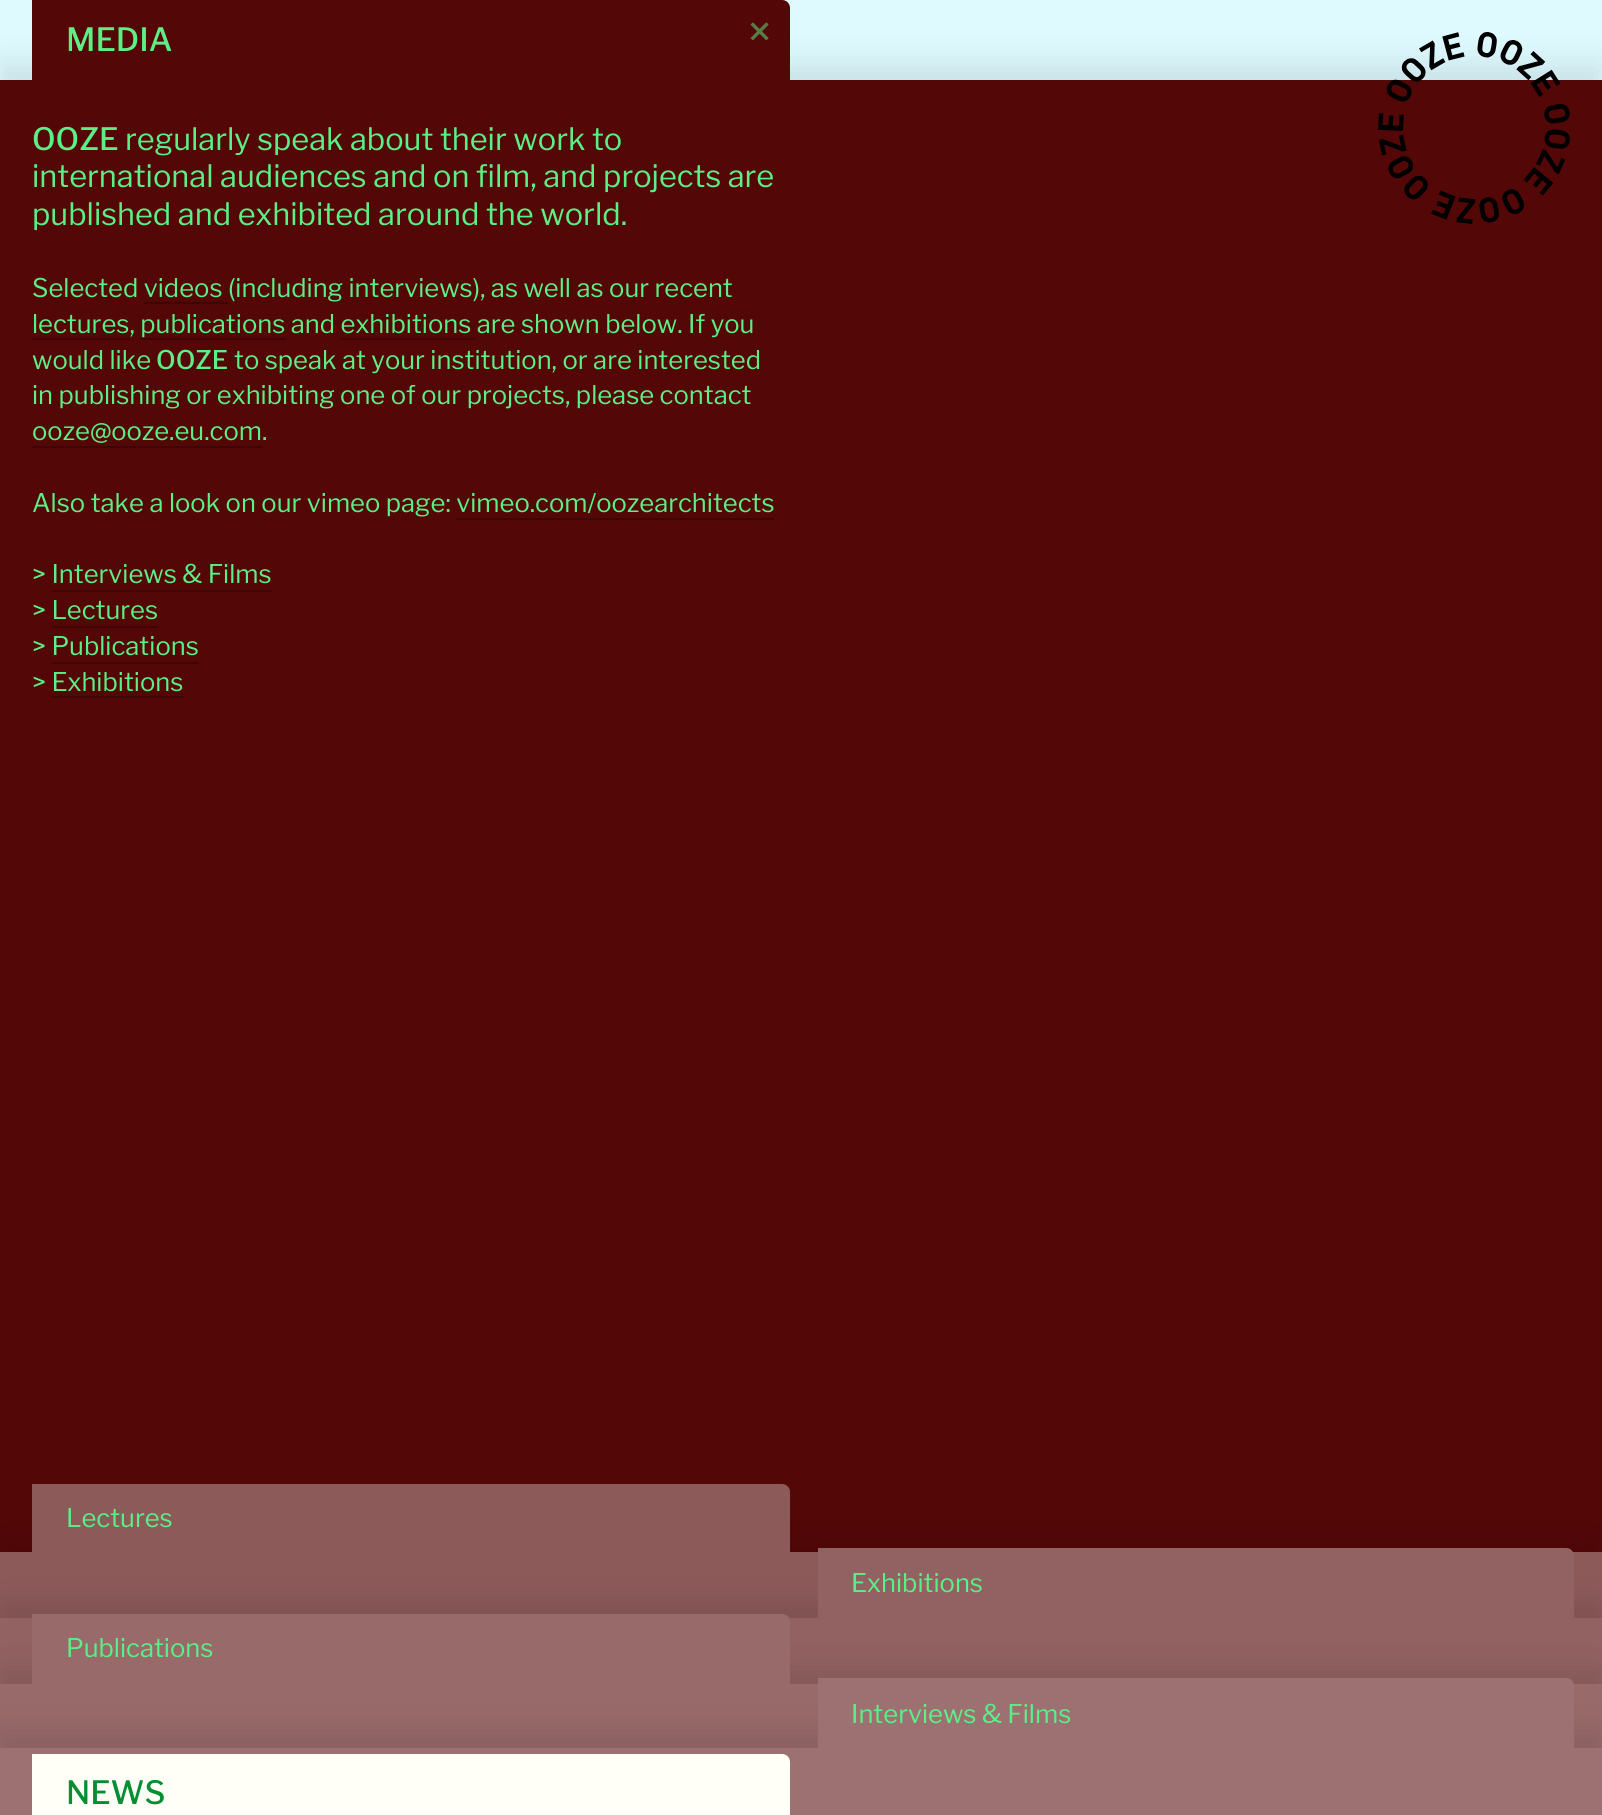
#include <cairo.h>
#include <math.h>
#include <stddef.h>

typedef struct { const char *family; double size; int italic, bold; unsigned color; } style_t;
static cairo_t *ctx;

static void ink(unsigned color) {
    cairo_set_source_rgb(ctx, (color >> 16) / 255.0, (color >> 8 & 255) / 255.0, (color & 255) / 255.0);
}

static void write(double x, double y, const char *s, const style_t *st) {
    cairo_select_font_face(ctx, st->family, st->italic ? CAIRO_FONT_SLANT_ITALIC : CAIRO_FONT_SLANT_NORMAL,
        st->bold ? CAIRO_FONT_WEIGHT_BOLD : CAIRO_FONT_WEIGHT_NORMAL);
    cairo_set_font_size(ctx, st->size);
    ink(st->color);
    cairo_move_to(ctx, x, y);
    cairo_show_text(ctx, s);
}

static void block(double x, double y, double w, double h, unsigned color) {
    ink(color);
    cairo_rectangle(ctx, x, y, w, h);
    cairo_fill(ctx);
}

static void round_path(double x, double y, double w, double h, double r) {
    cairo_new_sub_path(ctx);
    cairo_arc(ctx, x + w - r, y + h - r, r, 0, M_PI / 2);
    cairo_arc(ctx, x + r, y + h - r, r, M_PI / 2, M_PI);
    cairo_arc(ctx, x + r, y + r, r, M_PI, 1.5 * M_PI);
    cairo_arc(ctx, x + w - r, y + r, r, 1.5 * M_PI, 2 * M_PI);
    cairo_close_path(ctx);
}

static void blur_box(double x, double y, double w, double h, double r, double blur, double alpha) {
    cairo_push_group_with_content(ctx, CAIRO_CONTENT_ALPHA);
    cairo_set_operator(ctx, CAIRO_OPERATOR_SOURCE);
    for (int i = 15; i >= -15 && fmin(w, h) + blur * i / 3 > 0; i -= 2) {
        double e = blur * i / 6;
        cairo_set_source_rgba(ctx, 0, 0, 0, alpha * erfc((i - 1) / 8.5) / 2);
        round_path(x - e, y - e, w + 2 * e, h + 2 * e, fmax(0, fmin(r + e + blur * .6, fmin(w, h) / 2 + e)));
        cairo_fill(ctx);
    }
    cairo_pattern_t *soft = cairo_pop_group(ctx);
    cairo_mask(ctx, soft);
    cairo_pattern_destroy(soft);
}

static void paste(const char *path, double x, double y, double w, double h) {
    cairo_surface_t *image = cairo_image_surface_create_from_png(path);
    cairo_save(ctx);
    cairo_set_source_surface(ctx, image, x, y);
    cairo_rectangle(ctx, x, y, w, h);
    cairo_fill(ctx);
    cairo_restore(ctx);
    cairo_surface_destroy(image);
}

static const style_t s1 = {"Libre Franklin Medium", 32, 0, 0, 0x5bf085};
static const style_t s2 = {"Libre Franklin Medium", 42, 0, 0, 0x587c46};
static const style_t s3 = {"Libre Franklin Medium", 30.75, 0, 0, 0x5bf085};
static const style_t s4 = {"Libre Franklin", 30.75, 0, 0, 0x5bf085};
static const style_t s5 = {"Libre Franklin", 25.6, 0, 0, 0x5bf085};
static const style_t s6 = {"Libre Franklin Medium", 25.6, 0, 0, 0x5bf085};
static const style_t s7 = {"Libre Franklin Medium", 32, 0, 0, 0x048f33};

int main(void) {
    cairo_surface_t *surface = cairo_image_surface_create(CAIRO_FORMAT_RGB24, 1602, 1815);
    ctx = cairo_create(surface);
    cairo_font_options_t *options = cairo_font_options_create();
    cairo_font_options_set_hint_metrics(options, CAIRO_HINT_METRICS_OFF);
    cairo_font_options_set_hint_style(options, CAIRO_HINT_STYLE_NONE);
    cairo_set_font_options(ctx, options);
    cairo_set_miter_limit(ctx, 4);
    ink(0xdefaff);
    cairo_paint(ctx);
    ink(0x000000);
    blur_box(0, 64, 1602, 1472, 0, 16, 0.1);
    ink(0x540707);
    cairo_new_path(ctx);
    cairo_move_to(ctx, 32, 0);
    cairo_line_to(ctx, 782, 0);
    cairo_curve_to(ctx, 786.5, 0, 790, 3.5, 790, 8);
    cairo_line_to(ctx, 790, 80);
    cairo_line_to(ctx, 32, 80);
    cairo_close_path(ctx);
    cairo_fill(ctx);
    write(66, 51, "MEDIA", &s1);
    write(748, 47, "×", &s2);
    block(0, 80, 1602, 1472, 0x540707);
    write(32, 150, "OOZE", &s3);
    write(125, 150, "regularly speak about their work to", &s4);
    write(32, 187, "international audiences and on film, and projects are", &s4);
    write(32, 225, "published and exhibited around the world.", &s4);
    write(32, 297, "Selected videos (including interviews), as well as our recent", &s5);
    block(144, 302, 84, 2, 0x3f0505);
    write(32, 333, "lectures, publications and exhibitions are shown below. If you", &s5);
    block(32, 338, 98, 2, 0x3f0505);
    block(140, 338, 146, 2, 0x3f0505);
    block(340, 338, 136, 2, 0x3f0505);
    write(32, 369, "would like", &s5);
    write(156, 369, "OOZE", &s6);
    write(234, 369, "to speak at your institution, or are interested", &s5);
    write(32, 404, "in publishing or exhibiting one of our projects, please contact", &s5);
    write(32, 440, "ooze@ooze.eu.com.", &s5);
    block(32, 446, 230, 2, 0x3f0505);
    write(32, 512, "Also take a look on our vimeo page: vimeo.com/oozearchitects", &s5);
    block(456, 518, 318, 2, 0x3f0505);
    write(32, 583, "> Interviews & Films", &s5);
    block(52, 590, 220, 2, 0x3f0505);
    write(32, 619, "> Lectures", &s5);
    block(52, 626, 106, 2, 0x3f0505);
    write(32, 655, "> Publications", &s5);
    block(52, 662, 146, 2, 0x3f0505);
    write(32, 691, "> Exhibitions", &s5);
    block(52, 696, 132, 2, 0x3f0505);
    ink(0x000000);
    blur_box(0, 1536, 1602, 66, 0, 16, 0.1);
    block(0, 1552, 1602, 66, 0x8d5a5a);
    cairo_new_path(ctx);
    cairo_move_to(ctx, 32, 1484);
    cairo_line_to(ctx, 782, 1484);
    cairo_curve_to(ctx, 786.5, 1484, 790, 1487.5, 790, 1492);
    cairo_line_to(ctx, 790, 1552);
    cairo_line_to(ctx, 32, 1552);
    cairo_close_path(ctx);
    cairo_fill(ctx);
    write(66, 1527, "Lectures", &s5);
    ink(0x000000);
    blur_box(0, 1602, 1602, 66, 0, 16, 0.1);
    block(0, 1618, 1602, 66, 0x926262);
    cairo_new_path(ctx);
    cairo_move_to(ctx, 818, 1548);
    cairo_line_to(ctx, 1566, 1548);
    cairo_curve_to(ctx, 1570.5, 1548, 1574, 1551.5, 1574, 1556);
    cairo_line_to(ctx, 1574, 1618);
    cairo_line_to(ctx, 818, 1618);
    cairo_close_path(ctx);
    cairo_fill(ctx);
    write(851, 1592, "Exhibitions", &s5);
    ink(0x000000);
    blur_box(0, 1668, 1602, 64, 0, 16, 0.1);
    block(0, 1684, 1602, 64, 0x986a6a);
    cairo_new_path(ctx);
    cairo_move_to(ctx, 32, 1614);
    cairo_line_to(ctx, 782, 1614);
    cairo_curve_to(ctx, 786.5, 1614, 790, 1617.5, 790, 1622);
    cairo_line_to(ctx, 790, 1684);
    cairo_line_to(ctx, 32, 1684);
    cairo_close_path(ctx);
    cairo_fill(ctx);
    write(66, 1657, "Publications", &s5);
    ink(0x000000);
    blur_box(0, 1732, 1602, 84, 0, 16, 0.1);
    block(0, 1748, 1602, 67, 0x9d7171);
    cairo_new_path(ctx);
    cairo_move_to(ctx, 818, 1678);
    cairo_line_to(ctx, 1566, 1678);
    cairo_curve_to(ctx, 1570.5, 1678, 1574, 1681.5, 1574, 1686);
    cairo_line_to(ctx, 1574, 1748);
    cairo_line_to(ctx, 818, 1748);
    cairo_close_path(ctx);
    cairo_fill(ctx);
    write(851, 1723, "Interviews & Films", &s5);
    ink(0xfffef7);
    cairo_new_path(ctx);
    cairo_move_to(ctx, 32, 1754);
    cairo_line_to(ctx, 782, 1754);
    cairo_curve_to(ctx, 786.5, 1754, 790, 1757.5, 790, 1762);
    cairo_line_to(ctx, 790, 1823);
    cairo_line_to(ctx, 32, 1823);
    cairo_close_path(ctx);
    cairo_fill(ctx);
    write(66, 1804, "NEWS", &s7);
    paste("pic1.png", 1378, 32, 192, 192);
    cairo_surface_write_to_png(surface, "screenshot.png");
    cairo_font_options_destroy(options);
    cairo_destroy(ctx);
    cairo_surface_destroy(surface);
    return 0;
}
